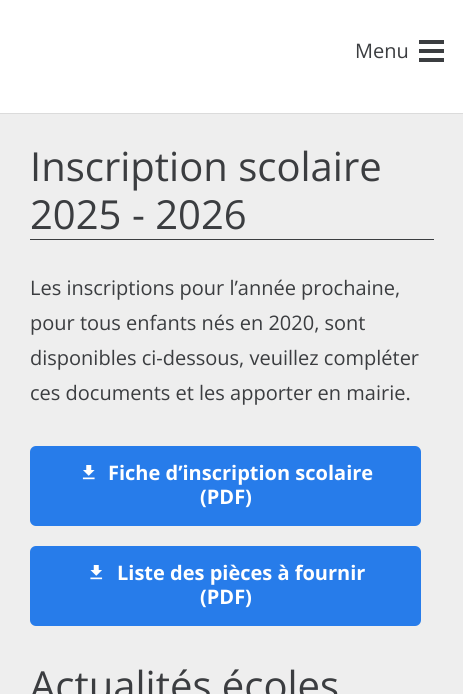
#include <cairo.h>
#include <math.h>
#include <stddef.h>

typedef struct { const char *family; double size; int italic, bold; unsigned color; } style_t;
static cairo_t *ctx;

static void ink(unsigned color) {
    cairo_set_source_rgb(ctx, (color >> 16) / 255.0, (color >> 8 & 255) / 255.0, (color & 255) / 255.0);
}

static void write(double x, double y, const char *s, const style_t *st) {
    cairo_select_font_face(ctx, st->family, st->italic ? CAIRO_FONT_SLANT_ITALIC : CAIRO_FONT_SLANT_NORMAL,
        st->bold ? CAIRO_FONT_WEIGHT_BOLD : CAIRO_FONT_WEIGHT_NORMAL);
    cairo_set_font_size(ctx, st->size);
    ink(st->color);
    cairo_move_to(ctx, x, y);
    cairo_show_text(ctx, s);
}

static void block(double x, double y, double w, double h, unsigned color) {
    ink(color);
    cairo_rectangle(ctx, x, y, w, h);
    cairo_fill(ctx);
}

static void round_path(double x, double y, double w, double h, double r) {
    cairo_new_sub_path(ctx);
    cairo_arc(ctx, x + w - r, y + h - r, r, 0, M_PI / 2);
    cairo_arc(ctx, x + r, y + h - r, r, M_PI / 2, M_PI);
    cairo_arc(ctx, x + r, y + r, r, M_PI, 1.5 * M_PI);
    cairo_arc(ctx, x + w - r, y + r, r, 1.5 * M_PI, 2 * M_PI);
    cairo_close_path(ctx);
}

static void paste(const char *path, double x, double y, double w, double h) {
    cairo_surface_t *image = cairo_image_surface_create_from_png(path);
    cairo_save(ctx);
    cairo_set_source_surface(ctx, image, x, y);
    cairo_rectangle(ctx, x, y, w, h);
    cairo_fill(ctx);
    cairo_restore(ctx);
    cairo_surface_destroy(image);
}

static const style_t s1 = {"Open Sans", 20, 0, 0, 0x3b3d40};
static const style_t s2 = {"Open Sans", 40, 0, 0, 0x3b3d40};
static const style_t s3 = {"Open Sans", 20, 0, 1, 0xffffff};

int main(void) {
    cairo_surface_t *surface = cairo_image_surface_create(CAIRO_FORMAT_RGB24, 463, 694);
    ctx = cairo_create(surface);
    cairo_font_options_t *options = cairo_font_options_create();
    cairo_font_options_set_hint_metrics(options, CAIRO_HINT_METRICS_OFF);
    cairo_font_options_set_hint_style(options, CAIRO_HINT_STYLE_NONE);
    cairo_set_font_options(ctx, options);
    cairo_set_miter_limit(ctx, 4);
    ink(0xeeeeee);
    cairo_paint(ctx);
    ink(0xdbdbdb);
    cairo_new_path(ctx);
    cairo_move_to(ctx, 0, 112);
    cairo_line_to(ctx, 0, 114);
    cairo_line_to(ctx, 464, 114);
    cairo_line_to(ctx, 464, 1);
    cairo_line_to(ctx, 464, 112);
    cairo_close_path(ctx);
    cairo_fill(ctx);
    block(0, 0, 463, 113, 0xffffff);
    write(355, 58, "Menu", &s1);
    block(419, 49, 25, 4, 0x3b3d40);
    block(419, 40, 25, 4, 0x3b3d40);
    block(419, 58, 25, 4, 0x3b3d40);
    block(30, 239, 404, 1, 0x3b3d40);
    write(30, 181, "Inscription scolaire", &s2);
    write(30, 229, "2025 - 2026", &s2);
    write(30, 295, "Les inscriptions pour l’année prochaine,", &s1);
    write(30, 330, "pour tous enfants nés en 2020, sont", &s1);
    write(30, 365, "disponibles ci-dessous, veuillez compléter", &s1);
    write(30, 400, "ces documents et les apporter en mairie.", &s1);
    ink(0x277cea);
    round_path(30, 446, 391, 80, 6);
    cairo_fill(ctx);
    paste("pic1.png", 82, 465, 13, 15);
    write(108, 480, "Fiche d’inscription scolaire", &s3);
    write(200, 504, "(PDF)", &s3);
    ink(0x277cea);
    round_path(30, 546, 391, 80, 6);
    cairo_fill(ctx);
    paste("pic2.png", 90, 565, 13, 15);
    write(117, 580, "Liste des pièces à fournir", &s3);
    write(200, 604, "(PDF)", &s3);
    write(30, 700, "Actualités écoles", &s2);
    cairo_surface_write_to_png(surface, "screenshot.png");
    cairo_font_options_destroy(options);
    cairo_destroy(ctx);
    cairo_surface_destroy(surface);
    return 0;
}
